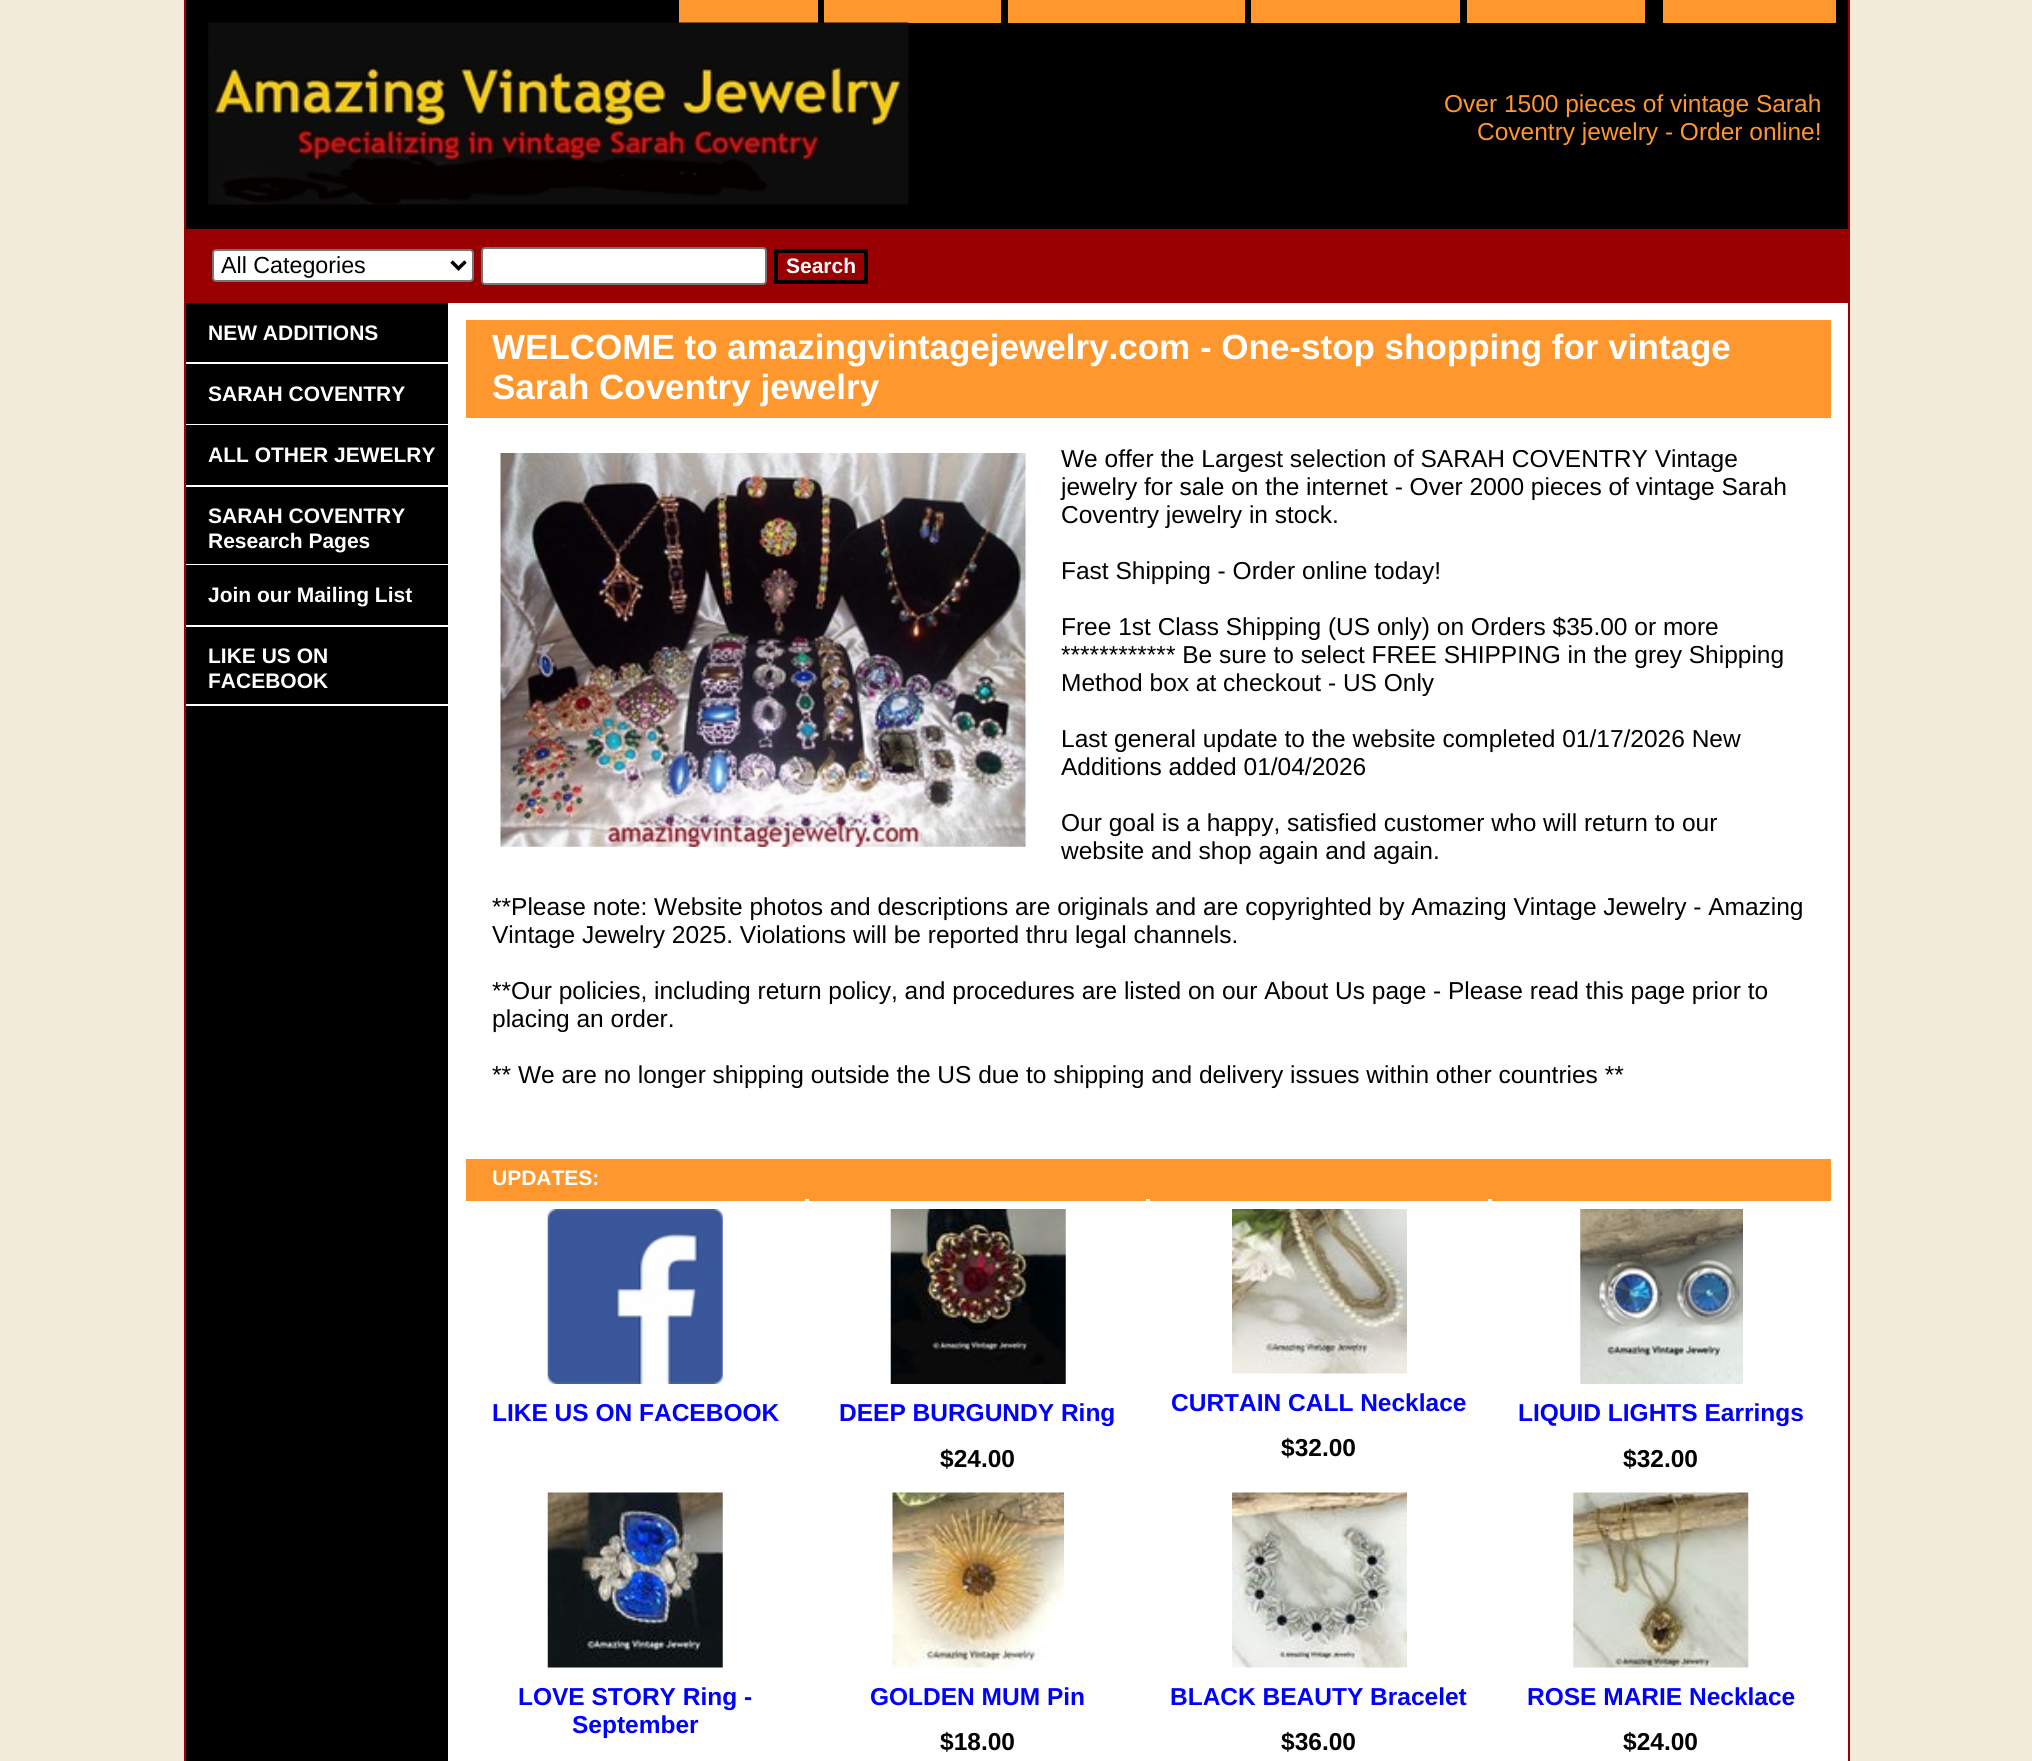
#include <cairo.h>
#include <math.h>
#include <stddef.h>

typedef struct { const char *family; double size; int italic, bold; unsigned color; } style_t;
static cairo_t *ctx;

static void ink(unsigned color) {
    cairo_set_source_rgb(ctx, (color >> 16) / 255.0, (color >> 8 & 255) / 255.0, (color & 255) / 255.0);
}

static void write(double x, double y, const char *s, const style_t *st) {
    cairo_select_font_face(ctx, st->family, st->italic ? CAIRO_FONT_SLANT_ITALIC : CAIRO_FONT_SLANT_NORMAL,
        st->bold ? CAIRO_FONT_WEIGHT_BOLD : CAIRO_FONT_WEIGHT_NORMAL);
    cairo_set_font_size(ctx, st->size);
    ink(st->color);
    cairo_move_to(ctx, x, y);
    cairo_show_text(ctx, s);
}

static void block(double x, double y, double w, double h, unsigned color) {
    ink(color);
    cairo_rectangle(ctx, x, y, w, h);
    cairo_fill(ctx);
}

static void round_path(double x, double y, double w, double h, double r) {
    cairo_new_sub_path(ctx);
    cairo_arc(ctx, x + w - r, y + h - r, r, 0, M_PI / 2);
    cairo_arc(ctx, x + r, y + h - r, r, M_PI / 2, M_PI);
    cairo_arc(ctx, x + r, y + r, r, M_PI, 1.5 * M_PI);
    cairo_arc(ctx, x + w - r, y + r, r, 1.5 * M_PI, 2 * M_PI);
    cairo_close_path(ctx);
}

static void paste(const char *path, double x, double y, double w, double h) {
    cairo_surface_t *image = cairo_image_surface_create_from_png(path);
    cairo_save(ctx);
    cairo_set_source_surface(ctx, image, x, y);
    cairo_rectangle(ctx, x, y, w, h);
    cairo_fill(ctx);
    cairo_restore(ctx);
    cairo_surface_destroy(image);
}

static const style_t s1 = {"Liberation Sans", 24.5, 0, 0, 0xff972f};
static const style_t s2 = {"Liberation Sans", 23.25, 0, 0, 0x000000};
static const style_t s3 = {"Liberation Sans", 21, 0, 1, 0xffffff};
static const style_t s4 = {"Liberation Sans", 35, 0, 1, 0xffffff};
static const style_t s5 = {"Liberation Sans", 24.5, 0, 0, 0x000000};
static const style_t s6 = {"Liberation Sans", 24.5, 0, 1, 0x0000ff};
static const style_t s7 = {"Liberation Sans", 24.5, 0, 1, 0x000000};

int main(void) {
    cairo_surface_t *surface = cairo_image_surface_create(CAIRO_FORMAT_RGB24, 2032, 1761);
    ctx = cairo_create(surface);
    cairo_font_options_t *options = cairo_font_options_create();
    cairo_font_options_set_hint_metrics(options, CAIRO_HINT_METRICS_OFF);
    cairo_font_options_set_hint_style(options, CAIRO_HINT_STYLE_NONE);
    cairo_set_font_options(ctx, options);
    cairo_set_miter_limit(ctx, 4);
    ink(0xf3ecda);
    cairo_paint(ctx);
    block(448, 303, 1400, 1458, 0xffffff);
    cairo_rectangle(ctx, 185, -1, 1664, 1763);
    ink(0x9a0002);
    cairo_stroke(ctx);
    block(186, 0, 1662, 229, 0x000000);
    block(679, 0, 139, 23, 0xff972f);
    block(824, 0, 177, 23, 0xff972f);
    block(1008, 0, 237, 23, 0xff972f);
    block(1251, 0, 209, 23, 0xff972f);
    block(1467, 0, 178, 23, 0xff972f);
    block(1663, 0, 173, 23, 0xff972f);
    paste("pic1.png", 208, 22, 701, 183);
    write(1444, 112, "Over 1500 pieces of vintage Sarah", &s1);
    write(1477, 140, "Coventry jewelry - Order online!", &s1);
    block(186, 229, 1662, 74, 0x9a0002);
    ink(0xffffff);
    round_path(213, 250, 260, 31, 3);
    cairo_fill_preserve(ctx);
    ink(0x767676);
    cairo_stroke(ctx);
    cairo_new_path(ctx);
    cairo_move_to(ctx, 451.5, 261.5);
    cairo_line_to(ctx, 458.5, 268.5);
    cairo_line_to(ctx, 465.5, 261.5);
    ink(0x000000);
    cairo_set_line_width(ctx, 3.5);
    cairo_stroke(ctx);
    write(221, 273, "All Categories", &s2);
    ink(0xffffff);
    round_path(482, 248, 284, 36, 3);
    cairo_fill_preserve(ctx);
    ink(0x767676);
    cairo_set_line_width(ctx, 2);
    cairo_stroke(ctx);
    cairo_rectangle(ctx, 776, 251, 90, 31);
    ink(0x000000);
    cairo_set_line_width(ctx, 4);
    cairo_stroke(ctx);
    write(786, 273, "Search", &s3);
    block(186, 303, 262, 1458, 0x000000);
    block(186, 362, 262, 2, 0xffffff);
    write(208, 340, "NEW ADDITIONS", &s3);
    block(186, 424, 262, 1, 0xffffff);
    write(208, 401, "SARAH COVENTRY", &s3);
    block(186, 485, 262, 2, 0xffffff);
    write(208, 462, "ALL OTHER JEWELRY", &s3);
    block(186, 564, 262, 1, 0xffffff);
    write(208, 523, "SARAH COVENTRY", &s3);
    write(208, 548, "Research Pages", &s3);
    block(186, 625, 262, 2, 0xffffff);
    write(208, 602, "Join our Mailing List", &s3);
    block(186, 704, 262, 2, 0xffffff);
    write(208, 663, "LIKE US ON", &s3);
    write(208, 688, "FACEBOOK", &s3);
    block(466, 320, 1365, 98, 0xff972f);
    write(492, 359, "WELCOME to amazingvintagejewelry.com - One-stop shopping for vintage", &s4);
    write(492, 399, "Sarah Coventry jewelry", &s4);
    write(1061, 467, "We offer the Largest selection of SARAH COVENTRY Vintage", &s5);
    write(1061, 495, "jewelry for sale on the internet - Over 2000 pieces of vintage Sarah", &s5);
    write(1061, 523, "Coventry jewelry in stock.", &s5);
    write(1061, 579, "Fast Shipping - Order online today!", &s5);
    write(1061, 635, "Free 1st Class Shipping (US only) on Orders $35.00 or more", &s5);
    write(1061, 663, "************ Be sure to select FREE SHIPPING in the grey Shipping", &s5);
    write(1061, 691, "Method box at checkout - US Only", &s5);
    write(1061, 747, "Last general update to the website completed 01/17/2026 New", &s5);
    write(1061, 775, "Additions added 01/04/2026", &s5);
    write(1061, 831, "Our goal is a happy, satisfied customer who will return to our", &s5);
    write(1061, 859, "website and shop again and again.", &s5);
    write(492, 915, "**Please note: Website photos and descriptions are originals and are copyrighted by Amazing Vintage Jewelry - Amazing", &s5);
    write(492, 943, "Vintage Jewelry 2025. Violations will be reported thru legal channels.", &s5);
    write(492, 999, "**Our policies, including return policy, and procedures are listed on our About Us page - Please read this page prior to", &s5);
    write(492, 1027, "placing an order.", &s5);
    write(492, 1083, "** We are no longer shipping outside the US due to shipping and delivery issues within other countries **", &s5);
    paste("pic2.png", 500, 453, 526, 394);
    block(466, 1159, 1365, 42, 0xff972f);
    write(492, 1185, "UPDATES:", &s3);
    block(805, 1199, 4, 2, 0xffffff);
    paste("pic3.png", 547, 1209, 176, 175);
    write(492, 1421, "LIKE US ON FACEBOOK", &s6);
    block(1146, 1199, 4, 2, 0xffffff);
    paste("pic4.png", 890, 1209, 176, 175);
    write(839, 1421, "DEEP BURGUNDY Ring", &s6);
    write(940, 1467, "$24.00", &s7);
    block(1488, 1199, 4, 2, 0xffffff);
    paste("pic5.png", 1232, 1209, 175, 165);
    write(1171, 1411, "CURTAIN CALL Necklace", &s6);
    write(1281, 1456, "$32.00", &s7);
    paste("pic6.png", 1580, 1209, 163, 175);
    write(1518, 1421, "LIQUID LIGHTS Earrings", &s6);
    write(1623, 1467, "$32.00", &s7);
    paste("pic7.png", 547, 1492, 176, 176);
    write(518, 1705, "LOVE STORY Ring -", &s6);
    write(572, 1733, "September", &s6);
    paste("pic8.png", 892, 1492, 172, 176);
    write(870, 1705, "GOLDEN MUM Pin", &s6);
    write(940, 1750, "$18.00", &s7);
    paste("pic9.png", 1232, 1492, 175, 176);
    write(1170, 1705, "BLACK BEAUTY Bracelet", &s6);
    write(1281, 1750, "$36.00", &s7);
    paste("pic10.png", 1573, 1492, 176, 176);
    write(1527, 1705, "ROSE MARIE Necklace", &s6);
    write(1623, 1750, "$24.00", &s7);
    cairo_surface_write_to_png(surface, "screenshot.png");
    cairo_font_options_destroy(options);
    cairo_destroy(ctx);
    cairo_surface_destroy(surface);
    return 0;
}
